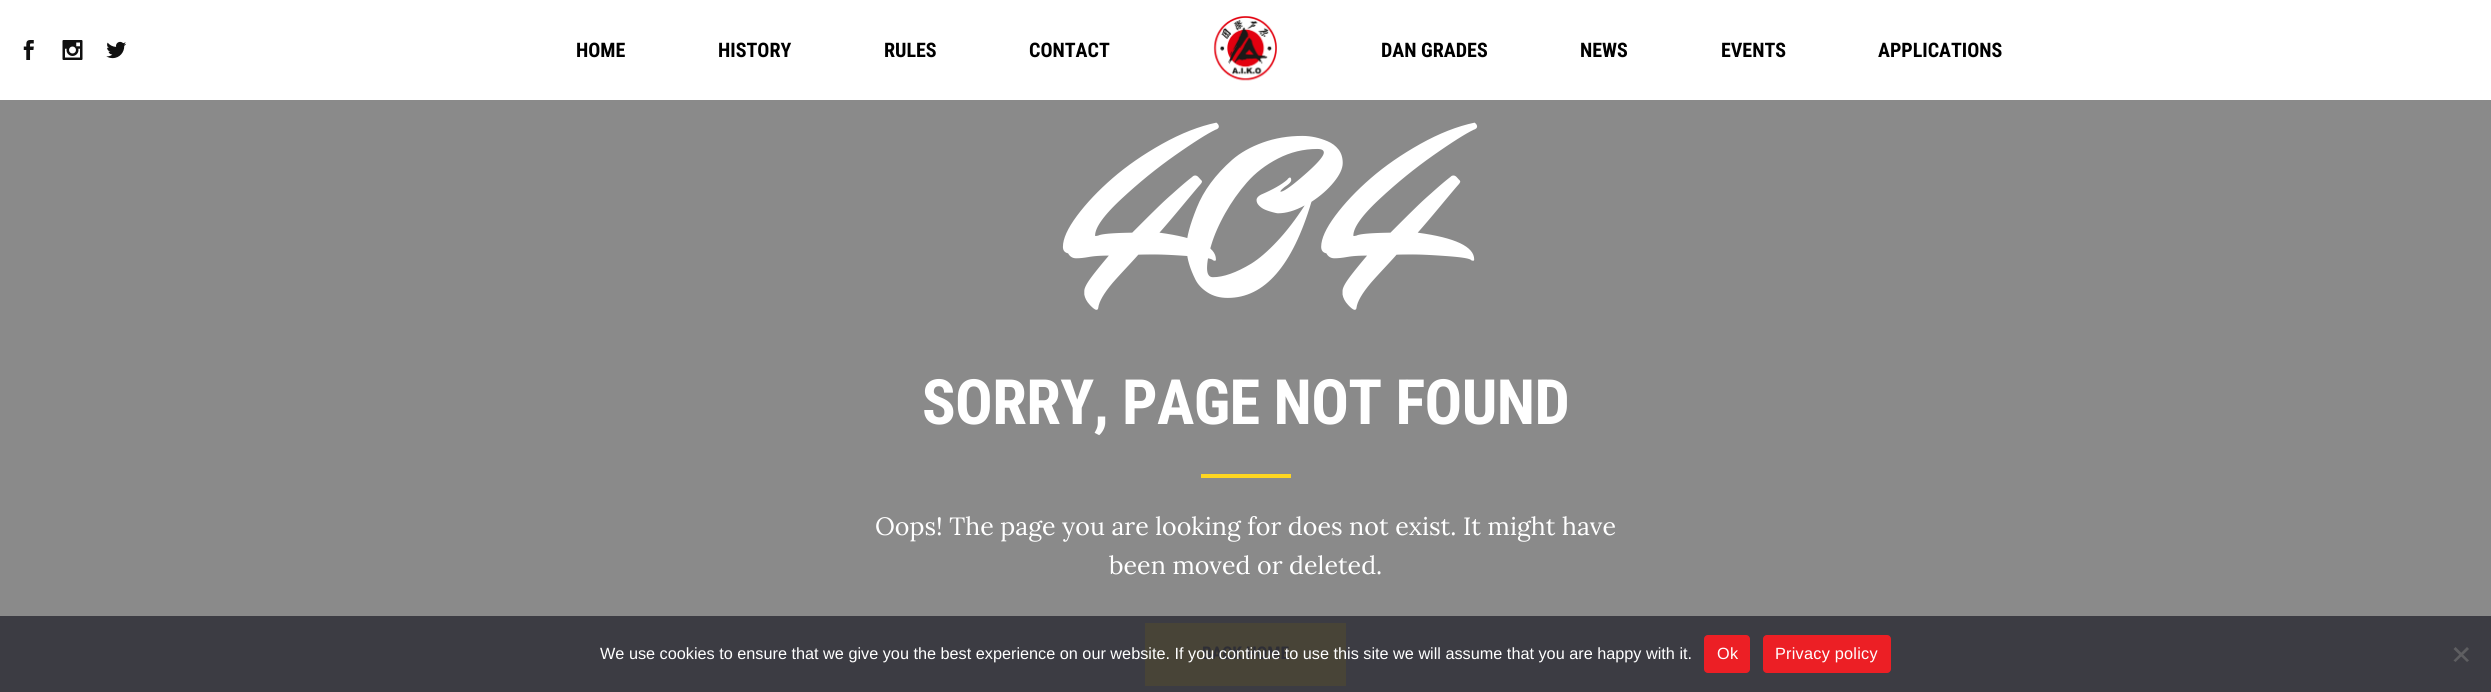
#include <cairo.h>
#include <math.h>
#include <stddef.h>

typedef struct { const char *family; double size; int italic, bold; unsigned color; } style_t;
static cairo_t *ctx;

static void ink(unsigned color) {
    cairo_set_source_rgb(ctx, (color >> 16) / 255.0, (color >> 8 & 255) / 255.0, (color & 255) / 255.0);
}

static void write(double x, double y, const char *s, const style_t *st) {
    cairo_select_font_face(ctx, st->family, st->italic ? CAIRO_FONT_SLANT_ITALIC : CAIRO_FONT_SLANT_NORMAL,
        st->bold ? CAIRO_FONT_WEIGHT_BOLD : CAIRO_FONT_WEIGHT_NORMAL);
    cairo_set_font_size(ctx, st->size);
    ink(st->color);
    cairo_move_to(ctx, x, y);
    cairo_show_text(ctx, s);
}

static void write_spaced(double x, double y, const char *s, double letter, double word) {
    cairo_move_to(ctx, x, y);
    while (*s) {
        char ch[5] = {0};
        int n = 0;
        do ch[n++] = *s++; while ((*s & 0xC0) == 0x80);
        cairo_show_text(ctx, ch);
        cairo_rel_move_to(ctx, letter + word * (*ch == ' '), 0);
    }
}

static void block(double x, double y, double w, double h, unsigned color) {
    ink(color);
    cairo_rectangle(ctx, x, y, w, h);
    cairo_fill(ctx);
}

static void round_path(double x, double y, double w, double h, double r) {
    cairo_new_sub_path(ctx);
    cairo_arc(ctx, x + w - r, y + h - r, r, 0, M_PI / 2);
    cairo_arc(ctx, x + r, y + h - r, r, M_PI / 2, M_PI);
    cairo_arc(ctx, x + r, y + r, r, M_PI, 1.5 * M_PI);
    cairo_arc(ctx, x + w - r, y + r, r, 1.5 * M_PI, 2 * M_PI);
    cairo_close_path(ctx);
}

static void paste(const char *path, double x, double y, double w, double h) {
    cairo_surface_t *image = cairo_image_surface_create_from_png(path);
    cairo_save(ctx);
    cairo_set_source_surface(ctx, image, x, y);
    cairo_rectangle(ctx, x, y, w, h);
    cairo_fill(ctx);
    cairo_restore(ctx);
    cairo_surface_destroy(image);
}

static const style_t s1 = {"Roboto Condensed", 20, 0, 1, 0x000000};
static const style_t s2 = {"Lora", 25, 0, 0, 0xffffff};
static const style_t s3 = {"Roboto Condensed", 17.5, 0, 1, 0x2e2e35};
static const style_t s4 = {"Liberation Sans", 16.25, 0, 0, 0xffffff};

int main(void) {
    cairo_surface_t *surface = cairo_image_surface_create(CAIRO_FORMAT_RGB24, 2491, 692);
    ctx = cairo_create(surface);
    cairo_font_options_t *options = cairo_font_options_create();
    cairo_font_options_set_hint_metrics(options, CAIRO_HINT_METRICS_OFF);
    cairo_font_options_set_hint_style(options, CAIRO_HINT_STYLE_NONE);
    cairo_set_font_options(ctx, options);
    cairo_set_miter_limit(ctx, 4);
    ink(0xffffff);
    cairo_paint(ctx);
    paste("pic1.png", 23, 40, 11, 20);
    paste("pic2.png", 62, 40, 21, 20);
    paste("pic3.png", 106, 41, 21, 18);
    write(576, 57, "HOME", &s1);
    write(718, 57, "HISTORY", &s1);
    write(884, 57, "RULES", &s1);
    write(1029, 57, "CONTACT", &s1);
    paste("pic4.png", 1213, 16, 64, 65);
    write(1381, 57, "DAN GRADES", &s1);
    write(1580, 57, "NEWS", &s1);
    write(1721, 57, "EVENTS", &s1);
    write(1878, 57, "APPLICATIONS", &s1);
    block(0, 100, 2491, 516, 0x8a8a8a);
    block(0, 616, 2491, 76, 0x3c3c43);
    cairo_select_font_face(ctx, "Mr Dafoe", CAIRO_FONT_SLANT_NORMAL, CAIRO_FONT_WEIGHT_NORMAL);
    cairo_set_font_size(ctx, 225);
    ink(0xffffff);
    write_spaced(1051, 288, "404", -2, 0);
    cairo_select_font_face(ctx, "Roboto Condensed", CAIRO_FONT_SLANT_NORMAL, CAIRO_FONT_WEIGHT_BOLD);
    cairo_set_font_size(ctx, 62.5);
    write_spaced(922, 424, "SORRY, PAGE NOT FOUND", -0.6, 0);
    block(1201, 474, 90, 4, 0xfed620);
    write(875, 535, "Oops! The page you are looking for does not exist. It might have", &s2);
    write(1109, 574, "been moved or deleted.", &s2);
    block(1145, 623, 201, 63, 0x484437);
    write(1202, 659, "BACK HOME", &s3);
    write(600, 659, "We use cookies to ensure that we give you the best experience on our website. If you continue to use this site we will assume that you are happy with it.", &s4);
    ink(0xec1f25);
    round_path(1704, 635, 46, 38, 4);
    cairo_fill(ctx);
    ink(0xffffff);
    write_spaced(1717, 659, "Ok", 0.25, 0);
    ink(0xec1f25);
    round_path(1763, 635, 128, 38, 4);
    cairo_fill(ctx);
    ink(0xffffff);
    write_spaced(1775, 659, "Privacy policy", 0.25, 0);
    ink(0x5e5e61);
    cairo_new_path(ctx);
    cairo_move_to(ctx, 2467, 647);
    cairo_line_to(ctx, 2469, 649);
    cairo_line_to(ctx, 2455.5, 662);
    cairo_line_to(ctx, 2453.5, 660.5);
    cairo_close_path(ctx);
    cairo_fill(ctx);
    cairo_new_path(ctx);
    cairo_move_to(ctx, 2453.5, 649);
    cairo_line_to(ctx, 2455.5, 647);
    cairo_line_to(ctx, 2469, 660.5);
    cairo_line_to(ctx, 2467, 662);
    cairo_close_path(ctx);
    cairo_fill(ctx);
    cairo_surface_write_to_png(surface, "screenshot.png");
    cairo_font_options_destroy(options);
    cairo_destroy(ctx);
    cairo_surface_destroy(surface);
    return 0;
}
